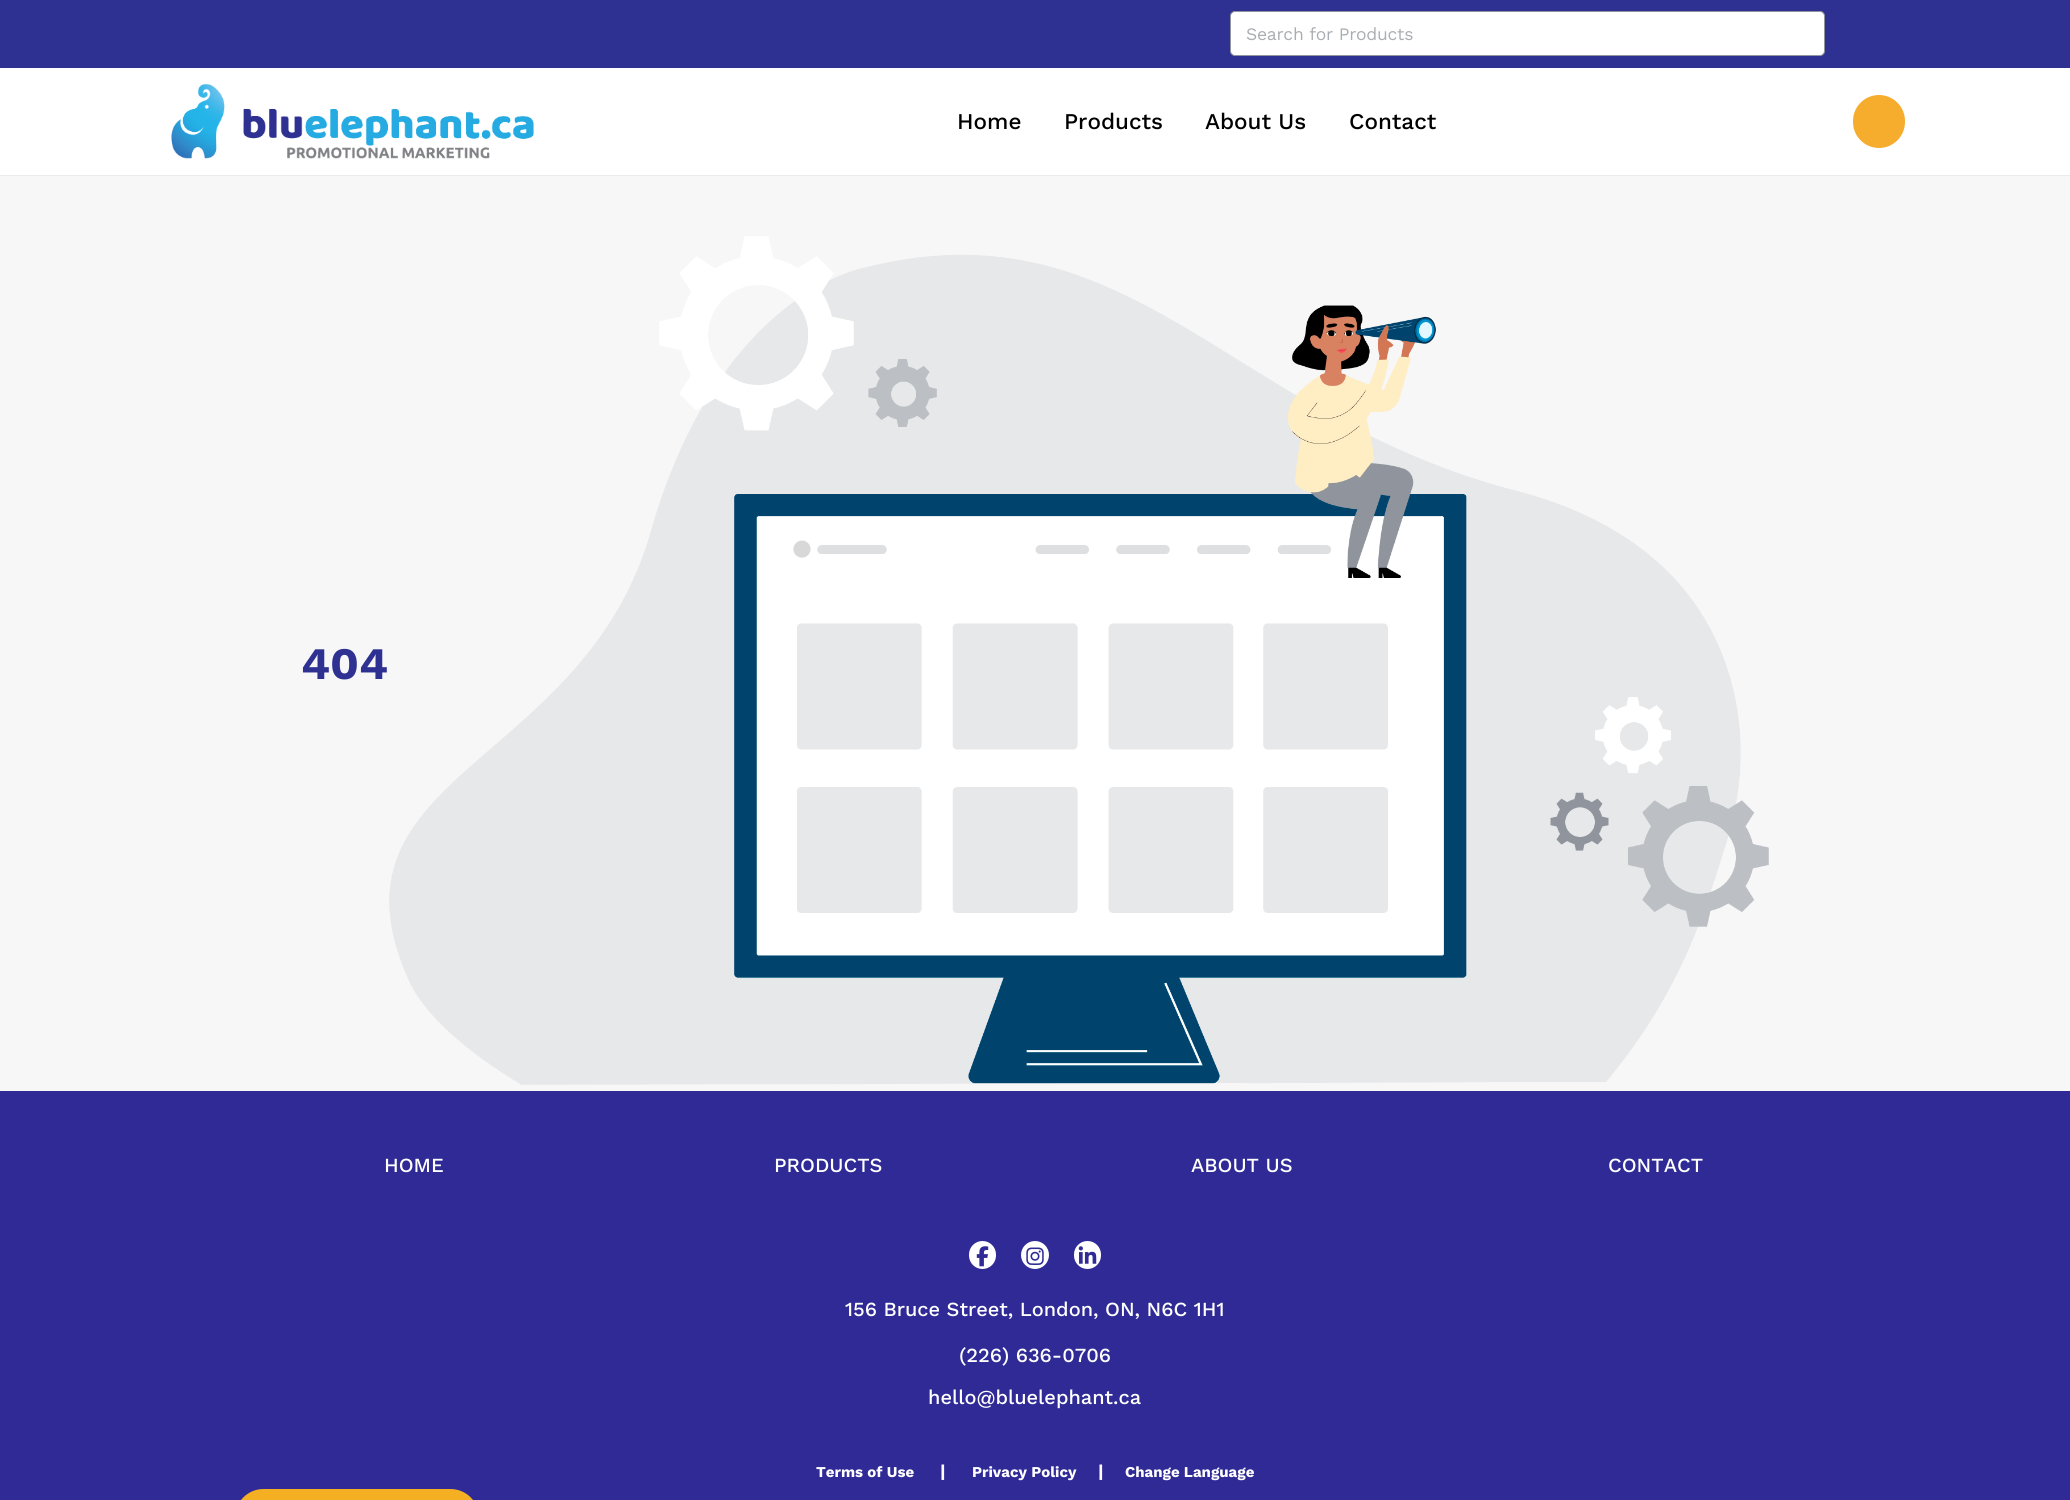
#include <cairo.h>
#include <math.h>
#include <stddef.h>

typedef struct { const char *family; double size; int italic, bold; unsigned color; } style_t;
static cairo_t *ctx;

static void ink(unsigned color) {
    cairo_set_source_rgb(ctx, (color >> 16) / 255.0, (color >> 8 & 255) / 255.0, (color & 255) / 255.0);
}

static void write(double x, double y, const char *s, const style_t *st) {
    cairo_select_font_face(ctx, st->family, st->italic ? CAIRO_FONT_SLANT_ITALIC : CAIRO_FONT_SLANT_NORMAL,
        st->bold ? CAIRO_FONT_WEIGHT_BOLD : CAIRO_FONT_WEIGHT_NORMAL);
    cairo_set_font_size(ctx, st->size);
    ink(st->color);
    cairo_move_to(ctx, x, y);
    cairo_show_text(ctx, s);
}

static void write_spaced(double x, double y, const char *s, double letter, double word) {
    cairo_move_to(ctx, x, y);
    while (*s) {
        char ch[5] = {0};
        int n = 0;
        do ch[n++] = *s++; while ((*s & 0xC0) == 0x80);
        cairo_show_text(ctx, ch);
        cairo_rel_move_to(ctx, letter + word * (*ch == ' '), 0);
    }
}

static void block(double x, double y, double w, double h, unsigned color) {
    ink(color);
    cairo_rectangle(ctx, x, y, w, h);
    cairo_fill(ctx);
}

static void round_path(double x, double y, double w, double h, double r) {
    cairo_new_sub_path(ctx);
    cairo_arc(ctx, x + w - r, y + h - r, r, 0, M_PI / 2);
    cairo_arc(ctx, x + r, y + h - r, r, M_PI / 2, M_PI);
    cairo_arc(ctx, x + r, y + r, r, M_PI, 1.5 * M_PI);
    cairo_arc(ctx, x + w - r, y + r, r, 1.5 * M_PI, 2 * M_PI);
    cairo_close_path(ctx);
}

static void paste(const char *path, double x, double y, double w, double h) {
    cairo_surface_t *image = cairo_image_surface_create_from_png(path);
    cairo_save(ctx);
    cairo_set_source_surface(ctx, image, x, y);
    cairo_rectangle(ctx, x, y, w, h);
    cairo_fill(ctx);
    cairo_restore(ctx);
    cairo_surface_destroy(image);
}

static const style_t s1 = {"Work Sans Medium", 22.5, 0, 0, 0x000000};
static const style_t s2 = {"Work Sans", 45, 0, 1, 0x2e3192};
static const style_t s3 = {"Work Sans Medium", 20, 0, 0, 0xffffff};
static const style_t s4 = {"Work Sans", 15, 0, 1, 0xffffff};
static const style_t s5 = {"Work Sans", 17.5, 0, 1, 0xffffff};

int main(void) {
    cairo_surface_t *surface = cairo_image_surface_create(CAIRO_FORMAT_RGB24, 2070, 1500);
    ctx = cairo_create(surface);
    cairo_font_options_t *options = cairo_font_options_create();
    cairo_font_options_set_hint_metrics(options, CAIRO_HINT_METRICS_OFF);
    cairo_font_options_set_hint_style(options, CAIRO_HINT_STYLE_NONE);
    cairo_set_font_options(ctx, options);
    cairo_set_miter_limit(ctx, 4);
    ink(0xf7f7f8);
    cairo_paint(ctx);
    block(0, 175, 2070, 1, 0xeaeaea);
    block(0, 0, 2070, 68, 0x2e3192);
    ink(0xffffff);
    round_path(1230.5, 11.5, 594, 44, 4.5);
    cairo_fill_preserve(ctx);
    ink(0x91949c);
    cairo_set_line_width(ctx, 1);
    cairo_stroke(ctx);
    cairo_select_font_face(ctx, "Work Sans", CAIRO_FONT_SLANT_NORMAL, CAIRO_FONT_WEIGHT_NORMAL);
    cairo_set_font_size(ctx, 17.5);
    ink(0xaaadb1);
    write_spaced(1246, 40, "Search for Products", -0.25, 0);
    block(0, 68, 2070, 107, 0xffffff);
    paste("pic1.png", 171, 83, 363, 76);
    write(957, 129, "Home", &s1);
    write(1064, 129, "Products", &s1);
    write(1205, 129, "About Us", &s1);
    write(1349, 129, "Contact", &s1);
    ink(0xf6ad2e);
    round_path(1853, 95, 52, 53, 26);
    cairo_fill(ctx);
    write(301, 679, "404", &s2);
    paste("pic2.png", 389, 236, 1380, 849);
    block(0, 1091, 2070, 409, 0x2f2a95);
    write(384, 1172, "HOME", &s3);
    write(774, 1172, "PRODUCTS", &s3);
    write(1191, 1172, "ABOUT US", &s3);
    write(1608, 1172, "CONTACT", &s3);
    round_path(969, 1241, 27, 28, 13.5);
    cairo_fill(ctx);
    paste("pic3.png", 976, 1246, 13, 21);
    cairo_arc(ctx, 1035, 1255, 14, 0, 2 * M_PI);
    cairo_fill(ctx);
    paste("pic4.png", 1026, 1247, 18, 18);
    round_path(1074, 1241, 27, 28, 13.5);
    cairo_fill(ctx);
    paste("pic5.png", 1078, 1246, 19, 18);
    write(845, 1316, "156 Bruce Street, London, ON, N6C 1H1", &s3);
    write(959, 1362, "(226) 636-0706", &s3);
    write(928, 1404, "hello@bluelephant.ca", &s3);
    write(816, 1477, "Terms of Use", &s4);
    write(940, 1477, "|", &s5);
    write(972, 1477, "Privacy Policy", &s4);
    write(1098, 1477, "|", &s5);
    write(1125, 1477, "Change Language", &s4);
    ink(0xf4af23);
    round_path(235, 1489, 244, 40, 28.5);
    cairo_fill(ctx);
    cairo_surface_write_to_png(surface, "screenshot.png");
    cairo_font_options_destroy(options);
    cairo_destroy(ctx);
    cairo_surface_destroy(surface);
    return 0;
}
